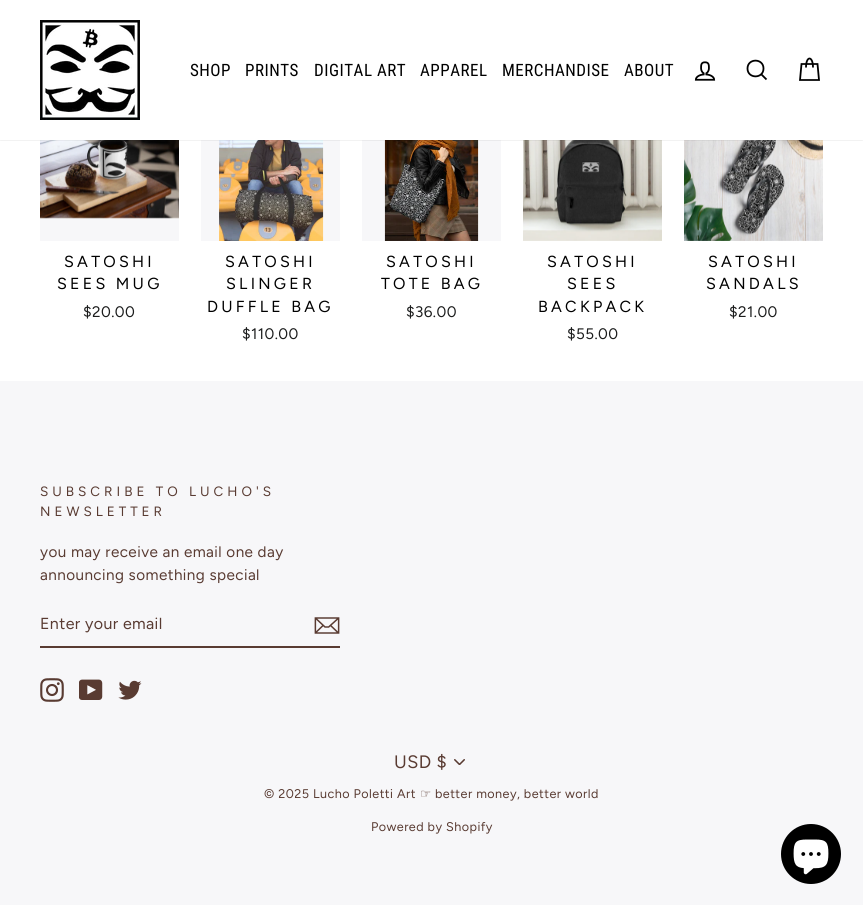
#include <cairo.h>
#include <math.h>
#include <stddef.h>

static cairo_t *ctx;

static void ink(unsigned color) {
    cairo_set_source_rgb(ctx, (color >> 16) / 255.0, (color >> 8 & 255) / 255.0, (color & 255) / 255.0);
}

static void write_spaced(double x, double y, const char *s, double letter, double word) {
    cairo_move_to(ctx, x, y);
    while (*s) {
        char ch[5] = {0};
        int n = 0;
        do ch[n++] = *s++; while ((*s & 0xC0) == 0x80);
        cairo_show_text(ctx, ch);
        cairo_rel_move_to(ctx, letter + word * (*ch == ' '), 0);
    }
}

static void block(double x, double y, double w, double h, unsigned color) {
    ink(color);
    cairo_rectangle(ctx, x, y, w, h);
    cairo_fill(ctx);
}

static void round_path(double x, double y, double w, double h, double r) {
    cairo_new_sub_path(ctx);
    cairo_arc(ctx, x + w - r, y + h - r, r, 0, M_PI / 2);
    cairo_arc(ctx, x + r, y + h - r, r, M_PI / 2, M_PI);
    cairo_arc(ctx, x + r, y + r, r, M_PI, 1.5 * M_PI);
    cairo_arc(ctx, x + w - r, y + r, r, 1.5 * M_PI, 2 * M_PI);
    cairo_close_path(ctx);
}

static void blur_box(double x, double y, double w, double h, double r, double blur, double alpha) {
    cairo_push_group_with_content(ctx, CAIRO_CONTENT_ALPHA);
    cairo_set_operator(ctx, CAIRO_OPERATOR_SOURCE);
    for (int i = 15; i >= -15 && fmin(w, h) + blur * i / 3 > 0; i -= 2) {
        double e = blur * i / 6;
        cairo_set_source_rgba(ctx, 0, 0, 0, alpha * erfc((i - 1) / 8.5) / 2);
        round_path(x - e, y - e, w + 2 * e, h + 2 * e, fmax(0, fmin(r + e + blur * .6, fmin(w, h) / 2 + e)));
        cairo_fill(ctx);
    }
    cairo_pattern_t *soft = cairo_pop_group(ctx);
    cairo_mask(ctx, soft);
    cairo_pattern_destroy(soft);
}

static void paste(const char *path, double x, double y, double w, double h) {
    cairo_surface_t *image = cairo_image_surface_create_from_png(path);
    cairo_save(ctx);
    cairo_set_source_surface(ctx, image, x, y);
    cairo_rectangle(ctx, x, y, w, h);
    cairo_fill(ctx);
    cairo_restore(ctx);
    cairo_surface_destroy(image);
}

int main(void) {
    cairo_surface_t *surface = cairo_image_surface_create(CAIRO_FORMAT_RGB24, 863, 905);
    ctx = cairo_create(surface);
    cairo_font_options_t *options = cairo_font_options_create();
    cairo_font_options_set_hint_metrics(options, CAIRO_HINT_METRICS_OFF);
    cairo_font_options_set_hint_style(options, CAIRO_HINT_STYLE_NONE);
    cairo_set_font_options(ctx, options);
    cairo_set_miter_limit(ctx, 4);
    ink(0xffffff);
    cairo_paint(ctx);
    block(40, 217, 139, 24, 0xf7f7f9);
    paste("pic3.png", 40, 140, 139, 79);
    block(201, 140, 139, 101, 0xf7f7f9);
    paste("pic4.png", 219, 140, 105, 101);
    block(362, 140, 139, 101, 0xf7f7f9);
    paste("pic5.png", 384, 140, 95, 101);
    paste("pic6.png", 523, 140, 139, 101);
    paste("pic7.png", 684, 140, 139, 101);
    ink(0x000000);
    blur_box(0, 0, 863, 140, 0, 0.5, 0.2);
    block(0, 0, 863, 140, 0xffffff);
    paste("pic1.png", 40, 20, 100, 100);
    cairo_select_font_face(ctx, "Roboto Condensed", CAIRO_FONT_SLANT_NORMAL, CAIRO_FONT_WEIGHT_NORMAL);
    cairo_set_font_size(ctx, 17);
    ink(0x000000);
    write_spaced(190, 76, "SHOP", 0.5, 0);
    write_spaced(245, 76, "PRINTS", 0.5, 0);
    write_spaced(314, 76, "DIGITAL ART", 0.5, 0);
    write_spaced(420, 76, "APPAREL", 0.5, 0);
    write_spaced(502, 76, "MERCHANDISE", 0.5, 0);
    write_spaced(624, 76, "ABOUT", 0.5, 0);
    paste("pic2.png", 694, 61, 22, 20);
    cairo_new_path(ctx);
    cairo_move_to(ctx, 763.5, 68.5);
    cairo_curve_to(ctx, 763.5, 79, 747.5, 79, 747.5, 68.5);
    cairo_curve_to(ctx, 747.5, 58, 763.5, 58, 763.5, 68.5);
    cairo_close_path(ctx);
    cairo_move_to(ctx, 766.5, 79.5);
    cairo_line_to(ctx, 761.5, 74.5);
    cairo_set_line_width(ctx, 1.8);
    cairo_stroke(ctx);
    cairo_new_path(ctx);
    cairo_move_to(ctx, 806, 67.5);
    cairo_curve_to(ctx, 806, 55.5, 813, 55.5, 813, 67.5);
    cairo_move_to(ctx, 801.5, 64);
    cairo_line_to(ctx, 817.5, 64);
    cairo_line_to(ctx, 819, 80);
    cairo_line_to(ctx, 800, 80);
    cairo_close_path(ctx);
    cairo_stroke(ctx);
    cairo_select_font_face(ctx, "Figtree", CAIRO_FONT_SLANT_NORMAL, CAIRO_FONT_WEIGHT_NORMAL);
    cairo_set_font_size(ctx, 16);
    write_spaced(64, 267, "SATOSHI", 3.25, 0);
    write_spaced(57, 289, "SEES MUG", 3.25, 0);
    cairo_set_font_size(ctx, 15.25);
    ink(0x1c1d1d);
    write_spaced(83, 317, "$20.00", 0.45, 0);
    cairo_set_font_size(ctx, 16);
    ink(0x000000);
    write_spaced(225, 267, "SATOSHI", 3.25, 0);
    write_spaced(226, 289, "SLINGER", 3.25, 0);
    write_spaced(207, 312, "DUFFLE BAG", 3.25, 0);
    cairo_set_font_size(ctx, 15.25);
    ink(0x1c1d1d);
    write_spaced(242, 339, "$110.00", 0.45, 0);
    cairo_set_font_size(ctx, 16);
    ink(0x000000);
    write_spaced(386, 267, "SATOSHI", 3.25, 0);
    write_spaced(381, 289, "TOTE BAG", 3.25, 0);
    cairo_set_font_size(ctx, 15.25);
    ink(0x1c1d1d);
    write_spaced(406, 317, "$36.00", 0.45, 0);
    cairo_set_font_size(ctx, 16);
    ink(0x000000);
    write_spaced(547, 267, "SATOSHI", 3.25, 0);
    write_spaced(567, 289, "SEES", 3.25, 0);
    write_spaced(538, 312, "BACKPACK", 3.25, 0);
    cairo_set_font_size(ctx, 15.25);
    ink(0x1c1d1d);
    write_spaced(567, 339, "$55.00", 0.45, 0);
    cairo_set_font_size(ctx, 16);
    ink(0x000000);
    write_spaced(708, 267, "SATOSHI", 3.25, 0);
    write_spaced(706, 289, "SANDALS", 3.25, 0);
    cairo_set_font_size(ctx, 15.25);
    ink(0x1c1d1d);
    write_spaced(729, 317, "$21.00", 0.45, 0);
    block(0, 381, 863, 524, 0xf7f7f9);
    cairo_set_font_size(ctx, 13.5);
    ink(0x593b32);
    write_spaced(40, 496, "SUBSCRIBE TO LUCHO'S", 4, 0);
    write_spaced(40, 516, "NEWSLETTER", 4, 0);
    cairo_set_font_size(ctx, 15.25);
    write_spaced(40, 557, "you may receive an email one day", 0.45, 0);
    write_spaced(40, 580, "announcing something special", 0.45, 0);
    block(40, 646, 300, 2, 0x593b32);
    cairo_set_font_size(ctx, 16);
    write_spaced(40, 629, "Enter your email", 0.4, 0);
    paste("pic8.png", 314, 617, 26, 17);
    paste("pic9.png", 40, 678, 24, 24);
    paste("pic10.png", 79, 679, 24, 21);
    paste("pic11.png", 118, 680, 24, 20);
    paste("pic12.png", 454, 759, 11, 6);
    cairo_set_font_size(ctx, 18);
    write_spaced(394, 768, "USD $", 0.45, 0);
    cairo_set_font_size(ctx, 12.6);
    write_spaced(264, 798, "© 2025 Lucho Poletti Art", 0.45, 0);
    cairo_select_font_face(ctx, "DejaVu Sans", CAIRO_FONT_SLANT_NORMAL, CAIRO_FONT_WEIGHT_NORMAL);
    write_spaced(420, 798, "☞", 0.45, 0);
    cairo_select_font_face(ctx, "Figtree", CAIRO_FONT_SLANT_NORMAL, CAIRO_FONT_WEIGHT_NORMAL);
    write_spaced(435, 798, "better money, better world", 0.45, 0);
    write_spaced(371, 831, "Powered by Shopify", 0.45, 0);
    ink(0x000000);
    cairo_new_path(ctx);
    cairo_arc(ctx, 811, 854, 30, 0, 2 * M_PI);
    cairo_fill(ctx);
    paste("pic13.png", 793, 839, 36, 36);
    cairo_surface_write_to_png(surface, "screenshot.png");
    cairo_font_options_destroy(options);
    cairo_destroy(ctx);
    cairo_surface_destroy(surface);
    return 0;
}
